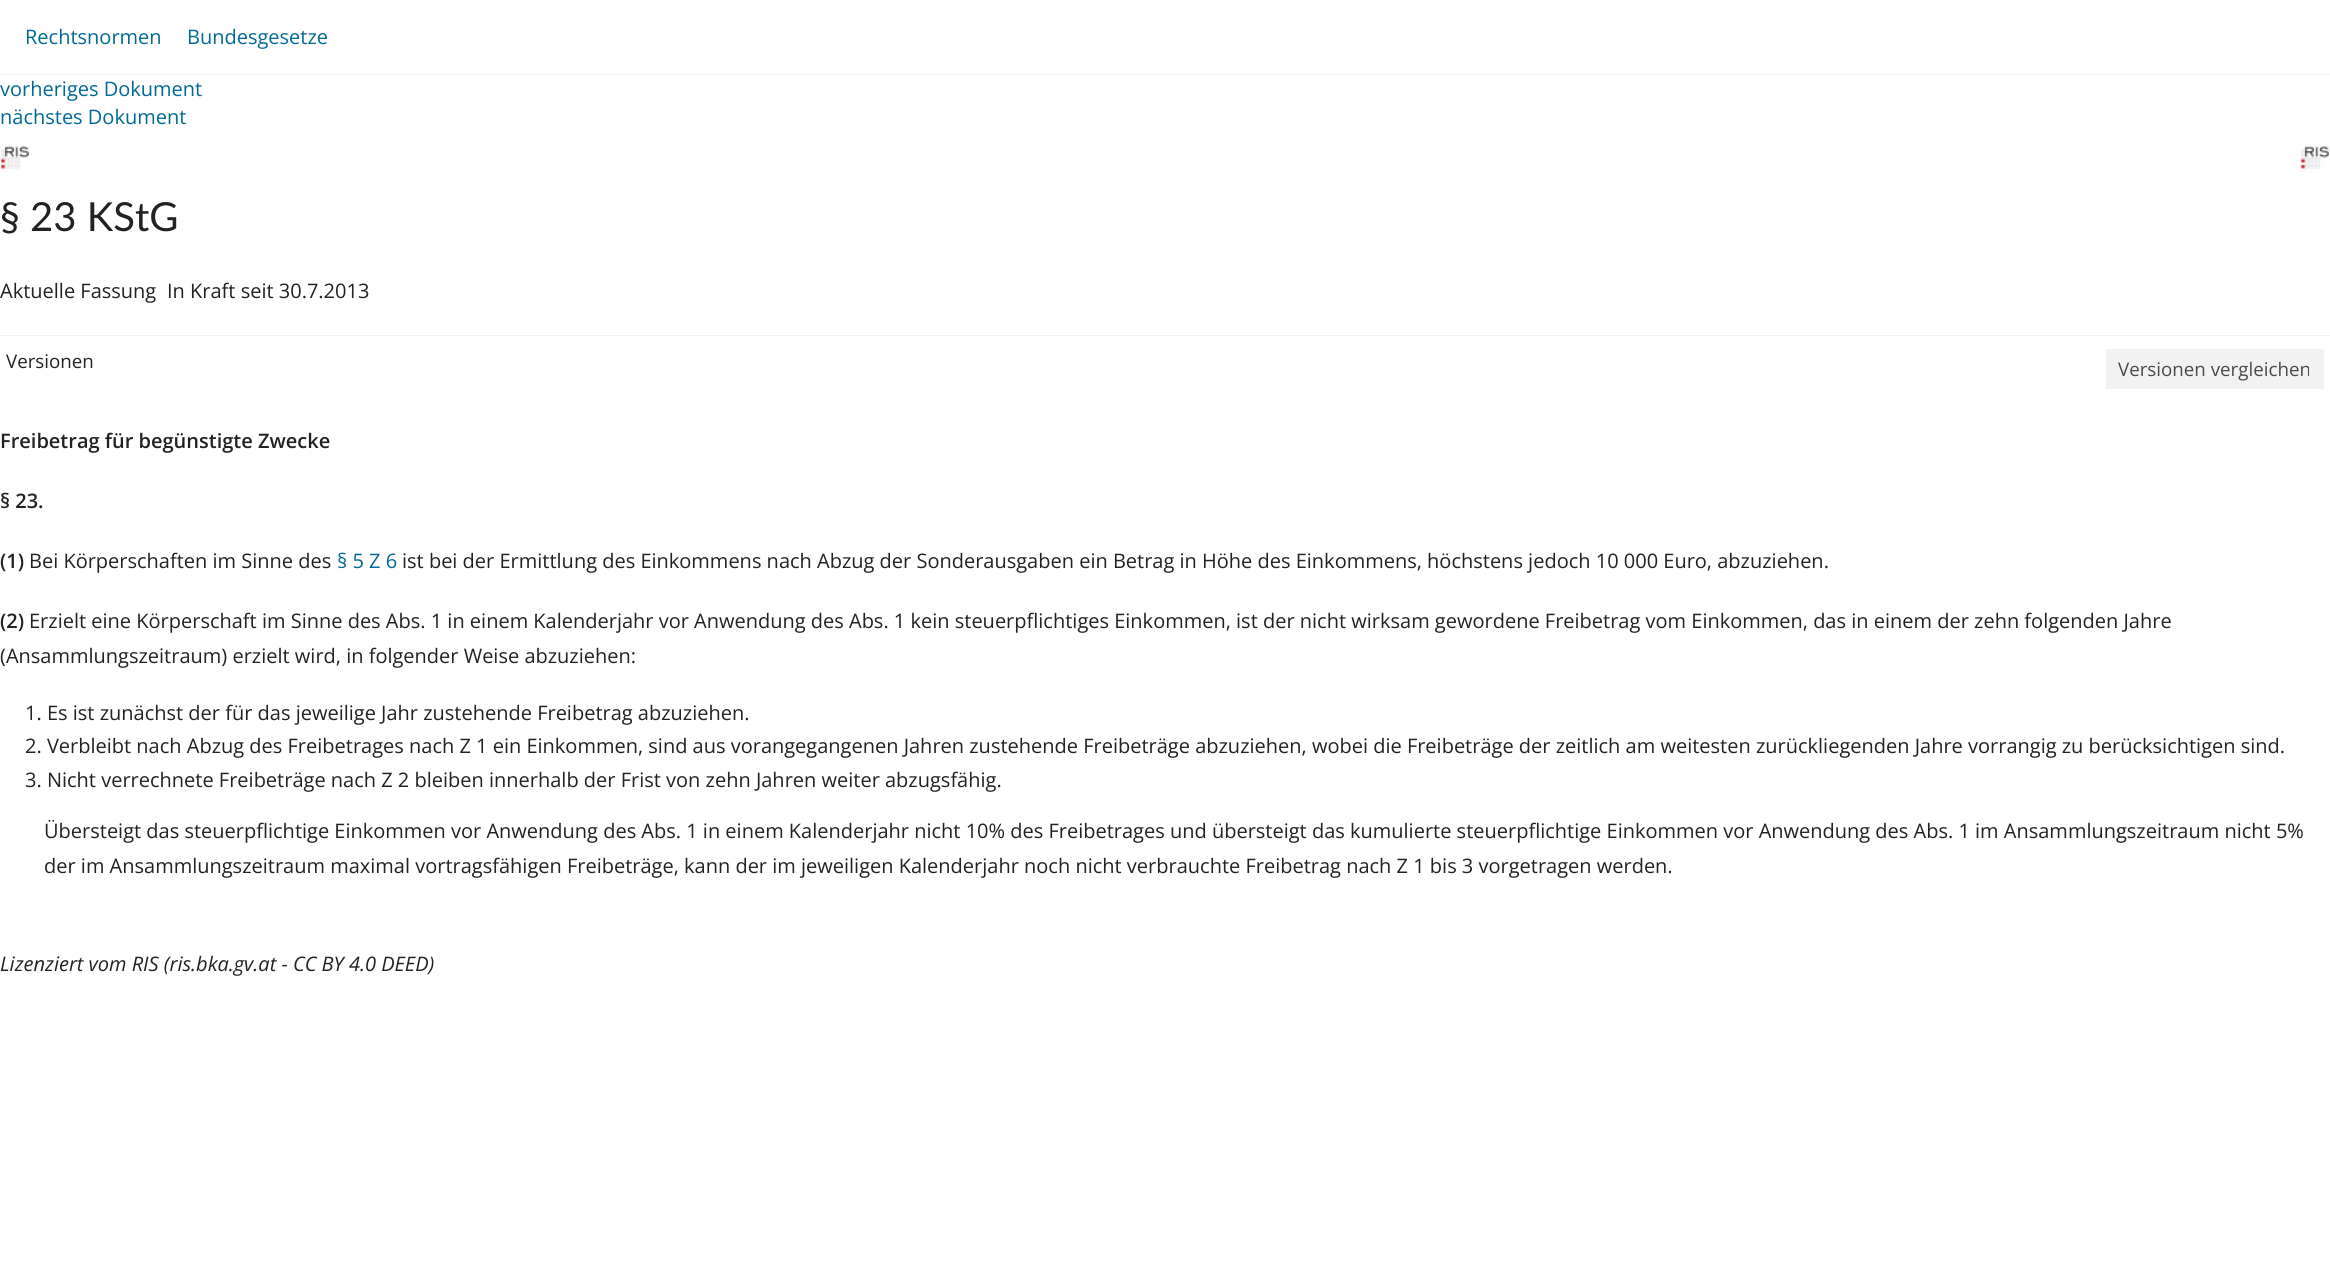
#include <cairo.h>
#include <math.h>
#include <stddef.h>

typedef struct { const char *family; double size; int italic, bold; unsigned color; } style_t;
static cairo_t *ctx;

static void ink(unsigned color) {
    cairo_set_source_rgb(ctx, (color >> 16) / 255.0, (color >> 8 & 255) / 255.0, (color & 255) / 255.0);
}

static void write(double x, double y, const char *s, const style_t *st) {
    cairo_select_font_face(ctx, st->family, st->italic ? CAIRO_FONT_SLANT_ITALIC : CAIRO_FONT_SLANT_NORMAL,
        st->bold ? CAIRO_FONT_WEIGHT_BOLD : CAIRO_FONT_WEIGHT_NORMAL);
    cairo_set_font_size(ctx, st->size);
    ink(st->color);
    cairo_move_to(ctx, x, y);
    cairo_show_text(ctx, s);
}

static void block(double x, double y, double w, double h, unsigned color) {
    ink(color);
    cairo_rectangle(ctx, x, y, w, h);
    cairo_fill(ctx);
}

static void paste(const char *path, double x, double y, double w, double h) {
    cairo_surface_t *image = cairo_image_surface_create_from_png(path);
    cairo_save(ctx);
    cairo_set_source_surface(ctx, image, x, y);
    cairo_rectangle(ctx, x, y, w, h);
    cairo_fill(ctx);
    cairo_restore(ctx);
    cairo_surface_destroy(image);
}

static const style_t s1 = {"Open Sans", 20, 0, 0, 0x006997};
static const style_t s2 = {"Lato", 40, 0, 0, 0x222222};
static const style_t s3 = {"Open Sans", 20, 0, 0, 0x222222};
static const style_t s4 = {"Open Sans", 18.75, 0, 0, 0x222222};
static const style_t s5 = {"Open Sans", 18.75, 0, 0, 0x4a4a4a};
static const style_t s6 = {"Open Sans SemiBold", 20, 0, 0, 0x222222};
static const style_t s7 = {"Open Sans", 20, 1, 0, 0x222222};

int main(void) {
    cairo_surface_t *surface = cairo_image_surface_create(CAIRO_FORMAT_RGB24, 2330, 1265);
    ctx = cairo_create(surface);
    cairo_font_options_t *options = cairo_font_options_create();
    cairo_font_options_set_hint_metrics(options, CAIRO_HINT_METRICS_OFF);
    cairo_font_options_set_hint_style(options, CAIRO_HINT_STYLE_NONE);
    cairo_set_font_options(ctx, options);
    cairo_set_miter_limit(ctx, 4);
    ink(0xffffff);
    cairo_paint(ctx);
    block(0, 74, 2330, 1, 0xf0f0f0);
    write(25, 44, "Rechtsnormen", &s1);
    write(187, 44, "Bundesgesetze", &s1);
    write(0, 96, "vorheriges Dokument", &s1);
    write(0, 124, "nächstes Dokument", &s1);
    paste("pic1.png", 2300, 146, 30, 27);
    paste("pic1.png", 0, 146, 30, 27);
    write(0, 231, "§ 23 KStG", &s2);
    write(0, 298, "Aktuelle Fassung", &s3);
    write(167, 298, "In Kraft seit 30.7.2013", &s3);
    block(0, 335, 2330, 1, 0xf0f0f0);
    write(6, 368, "Versionen", &s4);
    block(2106, 349, 218, 40, 0xf2f2f2);
    write(2118, 376, "Versionen vergleichen", &s5);
    write(0, 448, "Freibetrag für begünstigte Zwecke", &s6);
    write(0, 508, "§ 23.", &s6);
    write(0, 568, "(1)", &s6);
    write(29, 568, "Bei Körperschaften im Sinne des", &s3);
    write(337, 568, "§ 5 Z 6", &s1);
    write(402, 568, "ist bei der Ermittlung des Einkommens nach Abzug der Sonderausgaben ein Betrag in Höhe des Einkommens, höchstens jedoch 10 000 Euro, abzuziehen.", &s3);
    write(0, 628, "(2)", &s6);
    write(29, 628, "Erzielt eine Körperschaft im Sinne des Abs. 1 in einem Kalenderjahr vor Anwendung des Abs. 1 kein steuerpflichtiges Einkommen, ist der nicht wirksam gewordene Freibetrag vom Einkommen, das in einem der zehn folgenden Jahre", &s3);
    write(0, 663, "(Ansammlungszeitraum) erzielt wird, in folgender Weise abzuziehen:", &s3);
    write(25, 720, "1. Es ist zunächst der für das jeweilige Jahr zustehende Freibetrag abzuziehen.", &s3);
    write(25, 753, "2. Verbleibt nach Abzug des Freibetrages nach Z 1 ein Einkommen, sind aus vorangegangenen Jahren zustehende Freibeträge abzuziehen, wobei die Freibeträge der zeitlich am weitesten zurückliegenden Jahre vorrangig zu berücksichtigen sind.", &s3);
    write(25, 787, "3. Nicht verrechnete Freibeträge nach Z 2 bleiben innerhalb der Frist von zehn Jahren weiter abzugsfähig.", &s3);
    write(44, 838, "Übersteigt das steuerpflichtige Einkommen vor Anwendung des Abs. 1 in einem Kalenderjahr nicht 10% des Freibetrages und übersteigt das kumulierte steuerpflichtige Einkommen vor Anwendung des Abs. 1 im Ansammlungszeitraum nicht 5%", &s3);
    write(44, 873, "der im Ansammlungszeitraum maximal vortragsfähigen Freibeträge, kann der im jeweiligen Kalenderjahr noch nicht verbrauchte Freibetrag nach Z 1 bis 3 vorgetragen werden.", &s3);
    write(0, 971, "Lizenziert vom RIS (ris.bka.gv.at - CC BY 4.0 DEED)", &s7);
    cairo_surface_write_to_png(surface, "screenshot.png");
    cairo_font_options_destroy(options);
    cairo_destroy(ctx);
    cairo_surface_destroy(surface);
    return 0;
}
